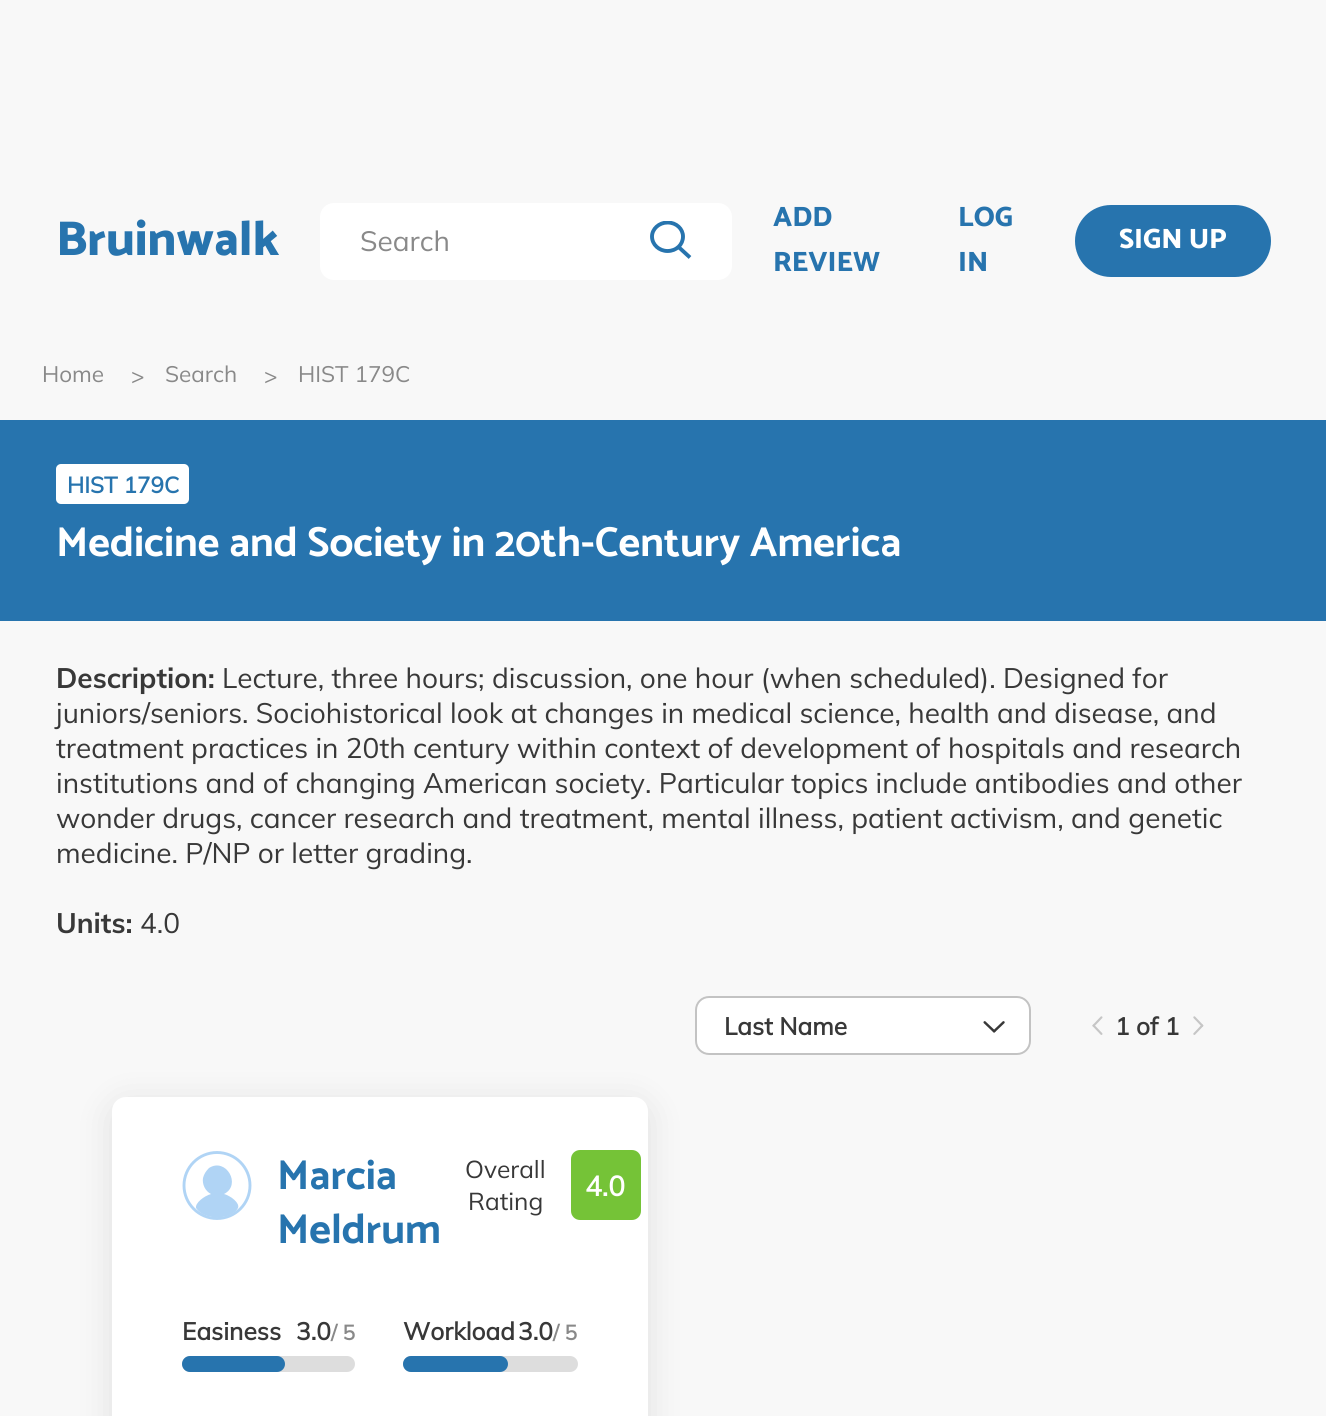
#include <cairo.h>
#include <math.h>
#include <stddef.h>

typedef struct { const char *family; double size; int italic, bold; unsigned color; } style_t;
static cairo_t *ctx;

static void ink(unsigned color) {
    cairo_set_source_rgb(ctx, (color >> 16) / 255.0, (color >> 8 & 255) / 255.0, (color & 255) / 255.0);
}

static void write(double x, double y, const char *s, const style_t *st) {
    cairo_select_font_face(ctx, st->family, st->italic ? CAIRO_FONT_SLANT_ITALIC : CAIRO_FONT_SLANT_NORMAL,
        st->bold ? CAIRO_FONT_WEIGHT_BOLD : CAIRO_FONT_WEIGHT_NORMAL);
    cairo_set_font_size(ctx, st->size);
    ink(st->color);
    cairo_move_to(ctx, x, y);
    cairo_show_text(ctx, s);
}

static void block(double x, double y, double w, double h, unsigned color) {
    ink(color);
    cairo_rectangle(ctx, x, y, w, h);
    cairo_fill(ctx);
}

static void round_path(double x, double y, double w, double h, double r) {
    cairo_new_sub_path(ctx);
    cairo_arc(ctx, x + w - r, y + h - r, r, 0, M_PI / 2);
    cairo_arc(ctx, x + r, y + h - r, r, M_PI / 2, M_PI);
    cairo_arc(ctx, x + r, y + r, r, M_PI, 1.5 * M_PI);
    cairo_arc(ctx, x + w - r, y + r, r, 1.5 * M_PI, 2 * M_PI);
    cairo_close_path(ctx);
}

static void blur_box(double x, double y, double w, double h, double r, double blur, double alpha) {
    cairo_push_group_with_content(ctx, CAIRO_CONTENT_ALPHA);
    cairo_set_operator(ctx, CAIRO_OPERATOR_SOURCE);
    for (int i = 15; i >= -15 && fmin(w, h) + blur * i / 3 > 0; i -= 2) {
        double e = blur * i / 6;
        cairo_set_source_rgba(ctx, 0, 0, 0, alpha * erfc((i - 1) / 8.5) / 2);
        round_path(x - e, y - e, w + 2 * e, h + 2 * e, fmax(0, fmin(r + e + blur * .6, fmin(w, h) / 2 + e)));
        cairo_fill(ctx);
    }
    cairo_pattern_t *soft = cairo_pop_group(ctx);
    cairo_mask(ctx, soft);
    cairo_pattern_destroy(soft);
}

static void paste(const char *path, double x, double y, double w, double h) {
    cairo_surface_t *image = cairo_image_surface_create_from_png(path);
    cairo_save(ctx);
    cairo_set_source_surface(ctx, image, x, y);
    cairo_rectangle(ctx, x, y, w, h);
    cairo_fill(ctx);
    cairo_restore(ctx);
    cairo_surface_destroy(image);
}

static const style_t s1 = {"Catamaran ExtraBold", 49, 0, 0, 0x2774ae};
static const style_t s2 = {"Mulish ExtraLight", 28, 0, 0, 0x898989};
static const style_t s3 = {"Catamaran ExtraBold", 28, 0, 0, 0x2774ae};
static const style_t s4 = {"Catamaran ExtraBold", 28, 0, 0, 0xffffff};
static const style_t s5 = {"Mulish ExtraLight", 22.5, 0, 0, 0x898989};
static const style_t s6 = {"Mulish", 22.5, 0, 1, 0x2774ae};
static const style_t s7 = {"Catamaran", 42, 0, 1, 0xffffff};
static const style_t s8 = {"Muli", 28, 0, 1, 0x383838};
static const style_t s9 = {"Muli", 28, 0, 0, 0x383838};
static const style_t s10 = {"Mulish", 24.5, 0, 1, 0x383838};
static const style_t s11 = {"Catamaran", 42, 0, 1, 0x2774ae};
static const style_t s12 = {"Mulish ExtraLight", 24.5, 0, 0, 0x383838};
static const style_t s13 = {"Mulish", 28, 0, 1, 0xffffff};
static const style_t s14 = {"Mulish", 21, 0, 1, 0x898989};

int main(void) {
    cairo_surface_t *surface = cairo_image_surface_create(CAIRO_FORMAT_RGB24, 1326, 1416);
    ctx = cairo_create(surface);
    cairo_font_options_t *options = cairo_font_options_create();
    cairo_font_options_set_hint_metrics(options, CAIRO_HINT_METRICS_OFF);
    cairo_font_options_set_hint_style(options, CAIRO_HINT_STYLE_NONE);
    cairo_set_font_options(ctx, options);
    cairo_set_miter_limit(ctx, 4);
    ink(0xf8f8f8);
    cairo_paint(ctx);
    write(56, 255, "Bruinwalk", &s1);
    ink(0xffffff);
    round_path(320, 203, 412, 77, 14);
    cairo_fill(ctx);
    write(360, 251, "Search", &s2);
    cairo_save(ctx);
    cairo_rectangle(ctx, 649, 221, 44, 40);
    cairo_clip(ctx);
    cairo_new_path(ctx);
    cairo_move_to(ctx, 683, 236.5);
    cairo_curve_to(ctx, 683, 244.5, 676.5, 251, 667.5, 251);
    cairo_curve_to(ctx, 659, 251, 652, 244.5, 652, 236.5);
    cairo_curve_to(ctx, 652, 229, 659, 222.5, 667.5, 222.5);
    cairo_curve_to(ctx, 676.5, 222.5, 683, 229, 683, 236.5);
    cairo_close_path(ctx);
    ink(0x2774ae);
    cairo_set_line_width(ctx, 3.9);
    cairo_stroke(ctx);
    cairo_restore(ctx);
    cairo_new_path(ctx);
    cairo_move_to(ctx, 678, 246.5);
    cairo_line_to(ctx, 690, 257.5);
    ink(0x2774ae);
    cairo_set_line_width(ctx, 3.9);
    cairo_stroke(ctx);
    write(773, 226, "ADD", &s3);
    write(773, 271, "REVIEW", &s3);
    write(958, 226, "LOG", &s3);
    write(958, 271, "IN", &s3);
    round_path(1076, 206, 194, 70, 35);
    cairo_fill_preserve(ctx);
    cairo_set_line_width(ctx, 2);
    cairo_stroke(ctx);
    write(1119, 248, "SIGN UP", &s4);
    write(42, 382, "Home", &s5);
    write(131, 384, ">", &s5);
    write(165, 382, "Search", &s5);
    write(264, 384, ">", &s5);
    write(298, 382, "HIST 179C", &s5);
    block(0, 420, 1326, 201, 0x2774ae);
    ink(0xffffff);
    round_path(56, 464, 133, 40, 5);
    cairo_fill(ctx);
    write(67, 493, "HIST 179C", &s6);
    write(56, 556, "Medicine and Society in 20th-Century America", &s7);
    write(56, 688, "Description:", &s8);
    write(222, 688, "Lecture, three hours; discussion, one hour (when scheduled). Designed for", &s9);
    write(56, 723, "juniors/seniors. Sociohistorical look at changes in medical science, health and disease, and", &s9);
    write(56, 758, "treatment practices in 20th century within context of development of hospitals and research", &s9);
    write(56, 793, "institutions and of changing American society. Particular topics include antibodies and other", &s9);
    write(56, 828, "wonder drugs, cancer research and treatment, mental illness, patient activism, and genetic", &s9);
    write(56, 863, "medicine. P/NP or letter grading.", &s9);
    write(56, 933, "Units:", &s8);
    write(140, 933, "4.0", &s9);
    ink(0x000000);
    blur_box(112, 1104, 536, 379, 14, 17.5, 0.1);
    ink(0xffffff);
    round_path(695, 996, 336, 59, 14);
    cairo_fill(ctx);
    round_path(696, 997, 334, 57, 13);
    cairo_set_source_rgba(ctx, 0.537, 0.537, 0.537, 0.5);
    cairo_stroke(ctx);
    write(724, 1035, "Last Name", &s10);
    paste("pic1.png", 983, 1021, 22, 12);
    paste("pic2.png", 1092, 1016, 11, 19);
    write(1115, 1035, "1 of 1", &s10);
    paste("pic3.png", 1193, 1016, 11, 19);
    ink(0xffffff);
    round_path(112, 1097, 536, 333, 14);
    cairo_fill(ctx);
    ink(0xb0d4f5);
    cairo_new_path(ctx);
    cairo_move_to(ctx, 238, 1208);
    cairo_curve_to(ctx, 240, 1203, 231, 1196, 224, 1194);
    cairo_curve_to(ctx, 242, 1185, 226, 1157, 209, 1168);
    cairo_curve_to(ctx, 206, 1171, 204, 1174, 203, 1178);
    cairo_curve_to(ctx, 202, 1184, 205, 1191, 211, 1194);
    cairo_curve_to(ctx, 204, 1196, 195, 1203, 196, 1208);
    cairo_curve_to(ctx, 204, 1221, 232, 1220, 238, 1208);
    cairo_close_path(ctx);
    cairo_fill(ctx);
    cairo_save(ctx);
    round_path(182, 1150, 70, 70, 35);
    cairo_clip(ctx);
    cairo_arc(ctx, 217, 1185.5, 33, 0, 2 * M_PI);
    cairo_set_line_width(ctx, 2.9);
    cairo_stroke(ctx);
    cairo_restore(ctx);
    write(277, 1189, "Marcia", &s11);
    write(277, 1243, "Meldrum", &s11);
    write(465, 1178, "Overall", &s12);
    write(468, 1210, "Rating", &s12);
    ink(0x75c337);
    round_path(571, 1150, 70, 70, 9);
    cairo_fill(ctx);
    write(585, 1196, "4.0", &s13);
    write(182, 1340, "Easiness", &s10);
    write(296, 1340, "3.0", &s10);
    write(331, 1340, "/ 5", &s14);
    ink(0xdddddd);
    round_path(182, 1356, 173, 16, 8);
    cairo_fill(ctx);
    ink(0x2774ae);
    round_path(182, 1356, 103, 16, 8);
    cairo_fill(ctx);
    write(403, 1340, "Workload", &s10);
    write(518, 1340, "3.0", &s10);
    write(553, 1340, "/ 5", &s14);
    ink(0xdddddd);
    round_path(403, 1356, 175, 16, 8);
    cairo_fill(ctx);
    ink(0x2774ae);
    round_path(403, 1356, 105, 16, 8);
    cairo_fill(ctx);
    cairo_surface_write_to_png(surface, "screenshot.png");
    cairo_font_options_destroy(options);
    cairo_destroy(ctx);
    cairo_surface_destroy(surface);
    return 0;
}
